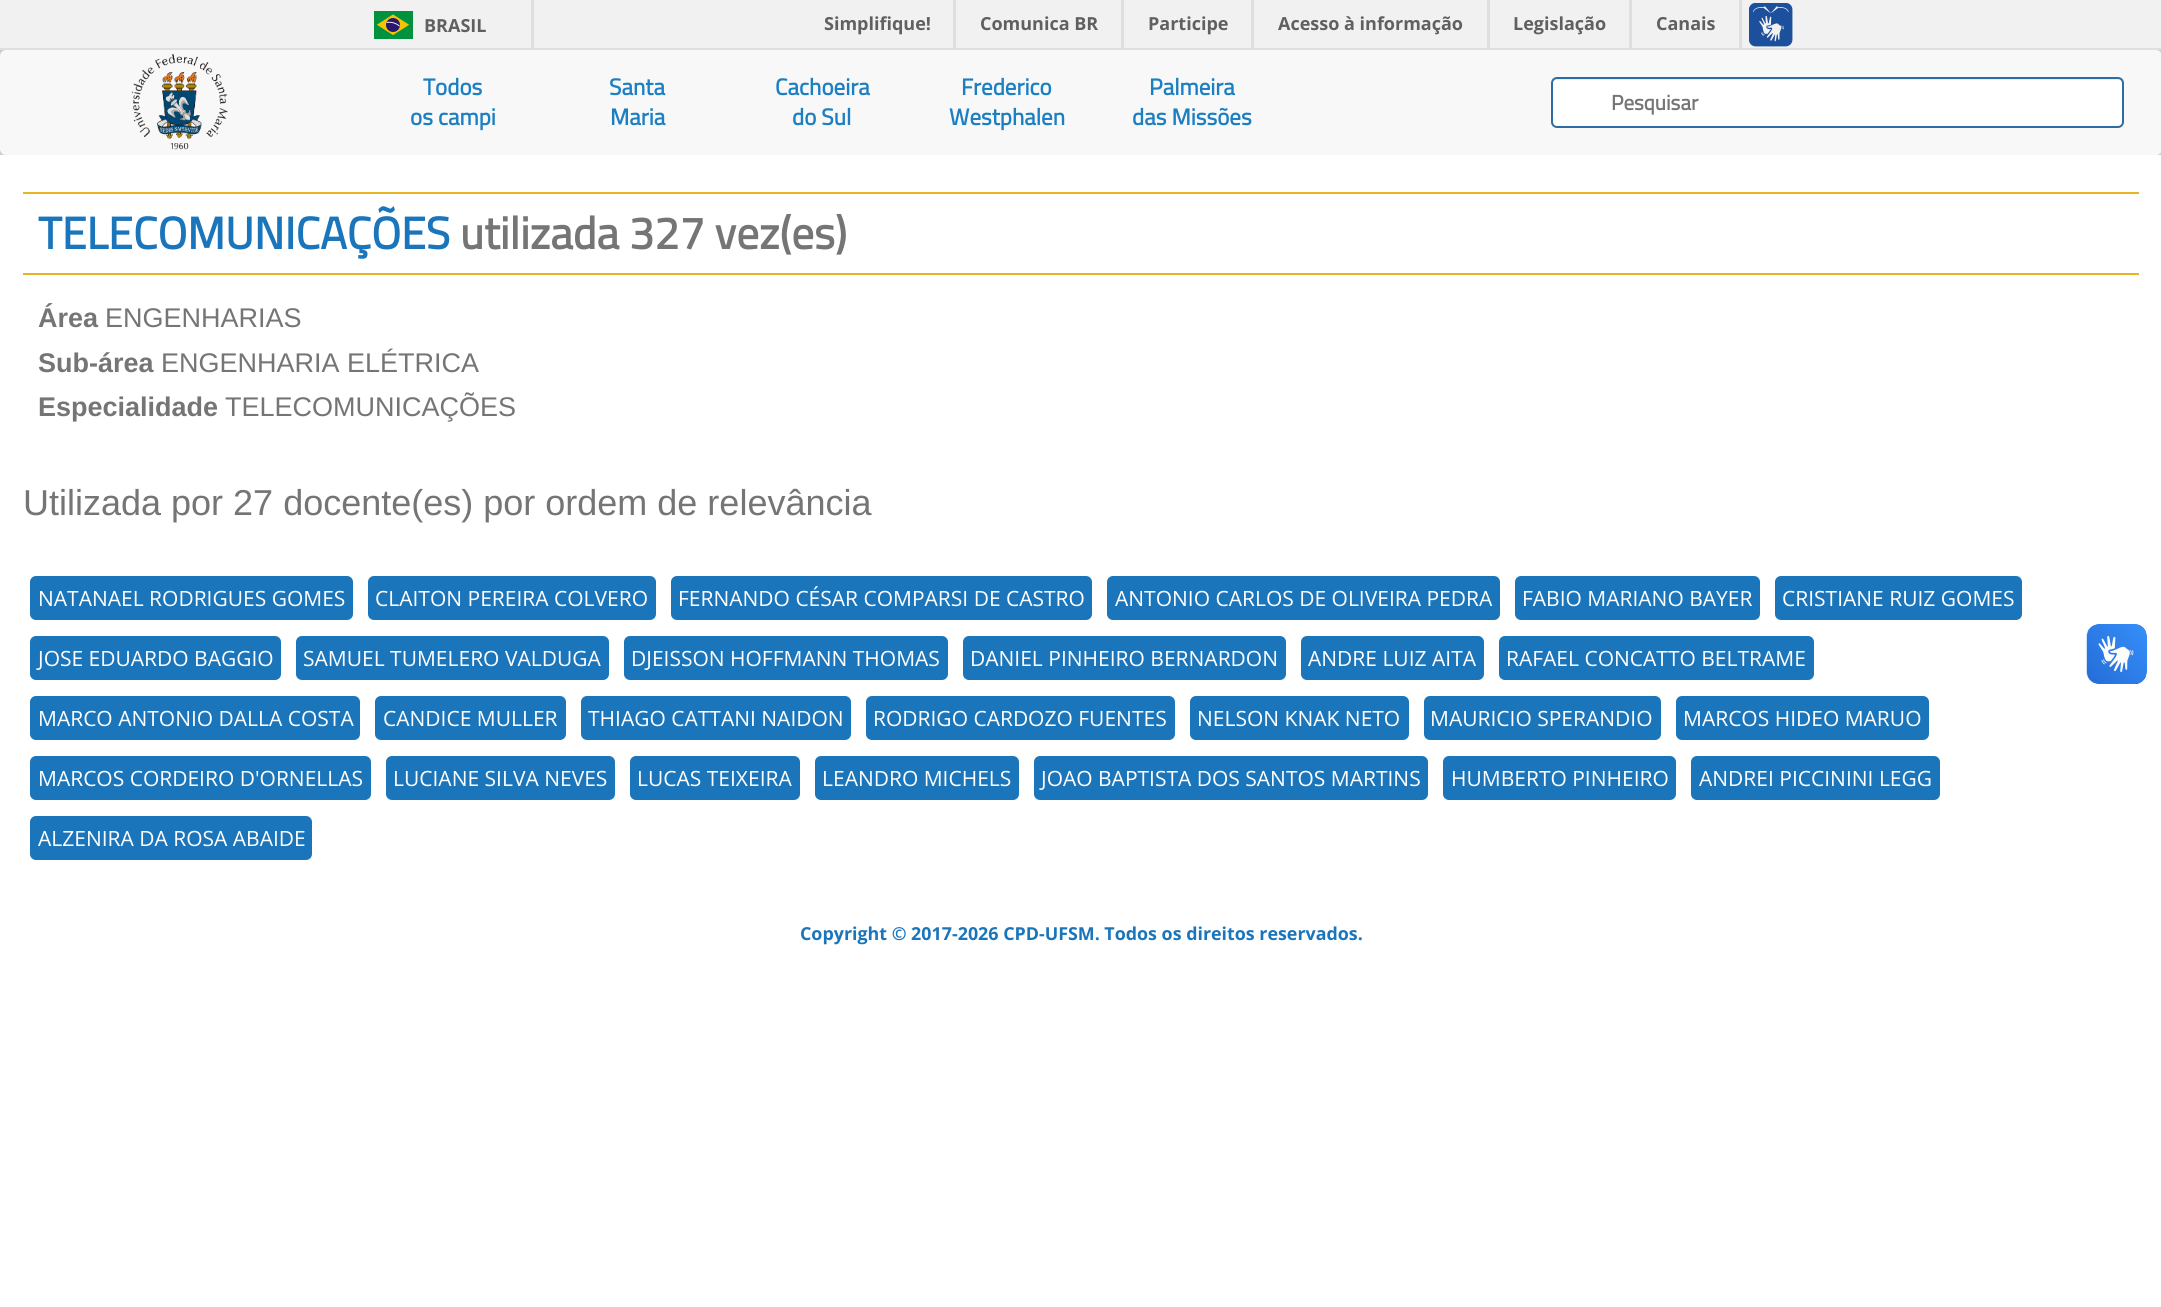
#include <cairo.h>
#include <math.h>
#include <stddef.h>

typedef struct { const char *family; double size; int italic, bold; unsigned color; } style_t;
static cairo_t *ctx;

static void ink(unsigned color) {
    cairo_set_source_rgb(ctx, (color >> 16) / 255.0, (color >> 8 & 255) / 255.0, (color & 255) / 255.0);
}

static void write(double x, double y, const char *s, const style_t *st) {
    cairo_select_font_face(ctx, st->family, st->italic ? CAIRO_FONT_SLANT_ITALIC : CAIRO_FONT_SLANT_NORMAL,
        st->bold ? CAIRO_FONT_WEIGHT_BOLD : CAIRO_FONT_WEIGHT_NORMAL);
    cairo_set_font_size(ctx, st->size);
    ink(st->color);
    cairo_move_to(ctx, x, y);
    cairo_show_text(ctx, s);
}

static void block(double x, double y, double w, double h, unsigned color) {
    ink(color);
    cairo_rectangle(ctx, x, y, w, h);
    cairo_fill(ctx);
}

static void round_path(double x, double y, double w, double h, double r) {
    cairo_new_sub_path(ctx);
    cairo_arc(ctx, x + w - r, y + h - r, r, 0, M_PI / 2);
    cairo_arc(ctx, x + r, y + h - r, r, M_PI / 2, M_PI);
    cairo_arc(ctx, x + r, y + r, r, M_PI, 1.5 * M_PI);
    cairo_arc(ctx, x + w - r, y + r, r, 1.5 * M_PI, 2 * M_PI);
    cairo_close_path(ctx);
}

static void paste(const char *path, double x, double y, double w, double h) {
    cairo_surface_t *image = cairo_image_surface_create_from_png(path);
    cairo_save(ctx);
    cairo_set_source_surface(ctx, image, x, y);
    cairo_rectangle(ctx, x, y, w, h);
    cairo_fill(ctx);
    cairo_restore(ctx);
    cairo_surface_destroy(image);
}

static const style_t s1 = {"Open Sans", 18, 0, 1, 0x606060};
static const style_t s2 = {"Titillium Web", 23, 0, 1, 0x1c7fc2};
static const style_t s3 = {"Titillium Web", 21, 0, 1, 0x757575};
static const style_t s4 = {"Titillium Web", 45, 0, 1, 0x1b75bb};
static const style_t s5 = {"Titillium Web", 45, 0, 1, 0x757575};
static const style_t s6 = {"Liberation Sans", 27, 0, 1, 0x757575};
static const style_t s7 = {"Liberation Sans", 27, 0, 0, 0x757575};
static const style_t s8 = {"Liberation Sans", 36, 0, 0, 0x757575};
static const style_t s9 = {"Open Sans", 21, 0, 0, 0xffffff};
static const style_t s10 = {"Open Sans", 17.85, 0, 1, 0x1b75bb};

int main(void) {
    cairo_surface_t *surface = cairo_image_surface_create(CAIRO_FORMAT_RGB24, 2161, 1307);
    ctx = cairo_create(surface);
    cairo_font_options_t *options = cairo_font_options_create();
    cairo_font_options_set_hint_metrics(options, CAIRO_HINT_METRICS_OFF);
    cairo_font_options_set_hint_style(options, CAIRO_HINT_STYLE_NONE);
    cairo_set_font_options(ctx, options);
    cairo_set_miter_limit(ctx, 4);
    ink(0xffffff);
    cairo_paint(ctx);
    block(0, 0, 2161, 48, 0xf1f1f1);
    block(0, 48, 2161, 2, 0xdfdfdf);
    block(531, 0, 3, 48, 0xdfdfdf);
    paste("pic1.png", 374, 11, 39, 28);
    write(424, 32, "BRASIL", &s1);
    block(953, 0, 3, 48, 0xdfdfdf);
    write(824, 30, "Simplifique!", &s1);
    block(1121, 0, 3, 48, 0xdfdfdf);
    write(980, 30, "Comunica BR", &s1);
    block(1251, 0, 3, 48, 0xdfdfdf);
    write(1148, 30, "Participe", &s1);
    block(1487, 0, 3, 48, 0xdfdfdf);
    write(1278, 30, "Acesso à informação", &s1);
    block(1629, 0, 3, 48, 0xdfdfdf);
    write(1513, 30, "Legislação", &s1);
    block(1739, 0, 3, 48, 0xdfdfdf);
    write(1656, 30, "Canais", &s1);
    paste("pic2.png", 1749, 3, 44, 44);
    block(0, 50, 2161, 105, 0xcccccc);
    ink(0xf8f8f8);
    round_path(0, 50, 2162, 105, 6);
    cairo_fill(ctx);
    paste("pic3.png", 131, 53, 97, 97);
    write(423, 95, "Todos", &s2);
    write(410, 125, "os campi", &s2);
    write(609, 95, "Santa", &s2);
    write(610, 125, "Maria", &s2);
    write(775, 95, "Cachoeira", &s2);
    write(792, 125, "do Sul", &s2);
    write(961, 95, "Frederico", &s2);
    write(949, 125, "Westphalen", &s2);
    write(1149, 95, "Palmeira", &s2);
    write(1132, 125, "das Missões", &s2);
    ink(0xffffff);
    round_path(1551, 77, 573, 51, 6);
    cairo_fill(ctx);
    ink(0xececec);
    cairo_new_path(ctx);
    cairo_move_to(ctx, 1557, 80);
    cairo_line_to(ctx, 2118, 80);
    cairo_curve_to(ctx, 2120, 80, 2122, 82, 2122, 84);
    cairo_line_to(ctx, 2122, 124);
    cairo_curve_to(ctx, 2123, 123, 2123, 122, 2123, 121);
    cairo_line_to(ctx, 2123, 83);
    cairo_curve_to(ctx, 2123, 80, 2121, 78, 2118, 78);
    cairo_line_to(ctx, 1558, 78);
    cairo_curve_to(ctx, 1556, 78, 1554, 80, 1553, 82);
    cairo_curve_to(ctx, 1554, 81, 1556, 80, 1557, 80);
    cairo_close_path(ctx);
    cairo_fill(ctx);
    round_path(1552, 78, 571, 49, 5);
    ink(0x2e6da4);
    cairo_stroke(ctx);
    write(1611, 110, "Pesquisar", &s3);
    block(23, 192, 2116, 2, 0xe8b424);
    block(23, 273, 2116, 2, 0xe8b424);
    write(38, 249, "TELECOMUNICAÇÕES", &s4);
    write(460, 249, "utilizada 327 vez(es)", &s5);
    write(38, 327, "Área", &s6);
    write(105, 327, "ENGENHARIAS", &s7);
    write(38, 372, "Sub-área", &s6);
    write(161, 372, "ENGENHARIA ELÉTRICA", &s7);
    write(38, 416, "Especialidade", &s6);
    write(225, 416, "TELECOMUNICAÇÕES", &s7);
    write(23, 515, "Utilizada por 27 docente(es) por ordem de relevância", &s8);
    ink(0x1b75bb);
    round_path(30, 576, 323, 44, 6);
    cairo_fill(ctx);
    write(38, 606, "NATANAEL RODRIGUES GOMES", &s9);
    ink(0x1b75bb);
    round_path(368, 576, 288, 44, 6);
    cairo_fill(ctx);
    write(375, 606, "CLAITON PEREIRA COLVERO", &s9);
    ink(0x1b75bb);
    round_path(671, 576, 421, 44, 6);
    cairo_fill(ctx);
    write(678, 606, "FERNANDO CÉSAR COMPARSI DE CASTRO", &s9);
    ink(0x1b75bb);
    round_path(1107, 576, 393, 44, 6);
    cairo_fill(ctx);
    write(1115, 606, "ANTONIO CARLOS DE OLIVEIRA PEDRA", &s9);
    ink(0x1b75bb);
    round_path(1515, 576, 245, 44, 6);
    cairo_fill(ctx);
    write(1522, 606, "FABIO MARIANO BAYER", &s9);
    ink(0x1b75bb);
    round_path(1775, 576, 247, 44, 6);
    cairo_fill(ctx);
    write(1782, 606, "CRISTIANE RUIZ GOMES", &s9);
    ink(0x1b75bb);
    round_path(30, 636, 251, 44, 6);
    cairo_fill(ctx);
    write(38, 666, "JOSE EDUARDO BAGGIO", &s9);
    ink(0x1b75bb);
    round_path(296, 636, 313, 44, 6);
    cairo_fill(ctx);
    write(303, 666, "SAMUEL TUMELERO VALDUGA", &s9);
    ink(0x1b75bb);
    round_path(624, 636, 324, 44, 6);
    cairo_fill(ctx);
    write(631, 666, "DJEISSON HOFFMANN THOMAS", &s9);
    ink(0x1b75bb);
    round_path(963, 636, 323, 44, 6);
    cairo_fill(ctx);
    write(970, 666, "DANIEL PINHEIRO BERNARDON", &s9);
    ink(0x1b75bb);
    round_path(1301, 636, 183, 44, 6);
    cairo_fill(ctx);
    write(1308, 666, "ANDRE LUIZ AITA", &s9);
    ink(0x1b75bb);
    round_path(1499, 636, 315, 44, 6);
    cairo_fill(ctx);
    write(1506, 666, "RAFAEL CONCATTO BELTRAME", &s9);
    ink(0x1b75bb);
    round_path(30, 696, 330, 44, 6);
    cairo_fill(ctx);
    write(38, 726, "MARCO ANTONIO DALLA COSTA", &s9);
    ink(0x1b75bb);
    round_path(375, 696, 191, 44, 6);
    cairo_fill(ctx);
    write(383, 726, "CANDICE MULLER", &s9);
    ink(0x1b75bb);
    round_path(581, 696, 270, 44, 6);
    cairo_fill(ctx);
    write(588, 726, "THIAGO CATTANI NAIDON", &s9);
    ink(0x1b75bb);
    round_path(866, 696, 309, 44, 6);
    cairo_fill(ctx);
    write(873, 726, "RODRIGO CARDOZO FUENTES", &s9);
    ink(0x1b75bb);
    round_path(1190, 696, 219, 44, 6);
    cairo_fill(ctx);
    write(1197, 726, "NELSON KNAK NETO", &s9);
    ink(0x1b75bb);
    round_path(1424, 696, 237, 44, 6);
    cairo_fill(ctx);
    write(1430, 726, "MAURICIO SPERANDIO", &s9);
    ink(0x1b75bb);
    round_path(1676, 696, 253, 44, 6);
    cairo_fill(ctx);
    write(1683, 726, "MARCOS HIDEO MARUO", &s9);
    ink(0x1b75bb);
    round_path(30, 756, 341, 44, 6);
    cairo_fill(ctx);
    write(38, 786, "MARCOS CORDEIRO D'ORNELLAS", &s9);
    ink(0x1b75bb);
    round_path(386, 756, 229, 44, 6);
    cairo_fill(ctx);
    write(393, 786, "LUCIANE SILVA NEVES", &s9);
    ink(0x1b75bb);
    round_path(630, 756, 170, 44, 6);
    cairo_fill(ctx);
    write(637, 786, "LUCAS TEIXEIRA", &s9);
    ink(0x1b75bb);
    round_path(815, 756, 204, 44, 6);
    cairo_fill(ctx);
    write(822, 786, "LEANDRO MICHELS", &s9);
    ink(0x1b75bb);
    round_path(1034, 756, 394, 44, 6);
    cairo_fill(ctx);
    write(1041, 786, "JOAO BAPTISTA DOS SANTOS MARTINS", &s9);
    ink(0x1b75bb);
    round_path(1443, 756, 233, 44, 6);
    cairo_fill(ctx);
    write(1451, 786, "HUMBERTO PINHEIRO", &s9);
    ink(0x1b75bb);
    round_path(1691, 756, 249, 44, 6);
    cairo_fill(ctx);
    write(1699, 786, "ANDREI PICCININI LEGG", &s9);
    ink(0x1b75bb);
    round_path(30, 816, 282, 44, 6);
    cairo_fill(ctx);
    write(38, 846, "ALZENIRA DA ROSA ABAIDE", &s9);
    write(800, 940, "Copyright © 2017-2026 CPD-UFSM. Todos os direitos reservados.", &s10);
    paste("pic4.png", 2086, 624, 61, 60);
    paste("pic5.png", 2087, 624, 60, 60);
    cairo_surface_write_to_png(surface, "screenshot.png");
    cairo_font_options_destroy(options);
    cairo_destroy(ctx);
    cairo_surface_destroy(surface);
    return 0;
}
